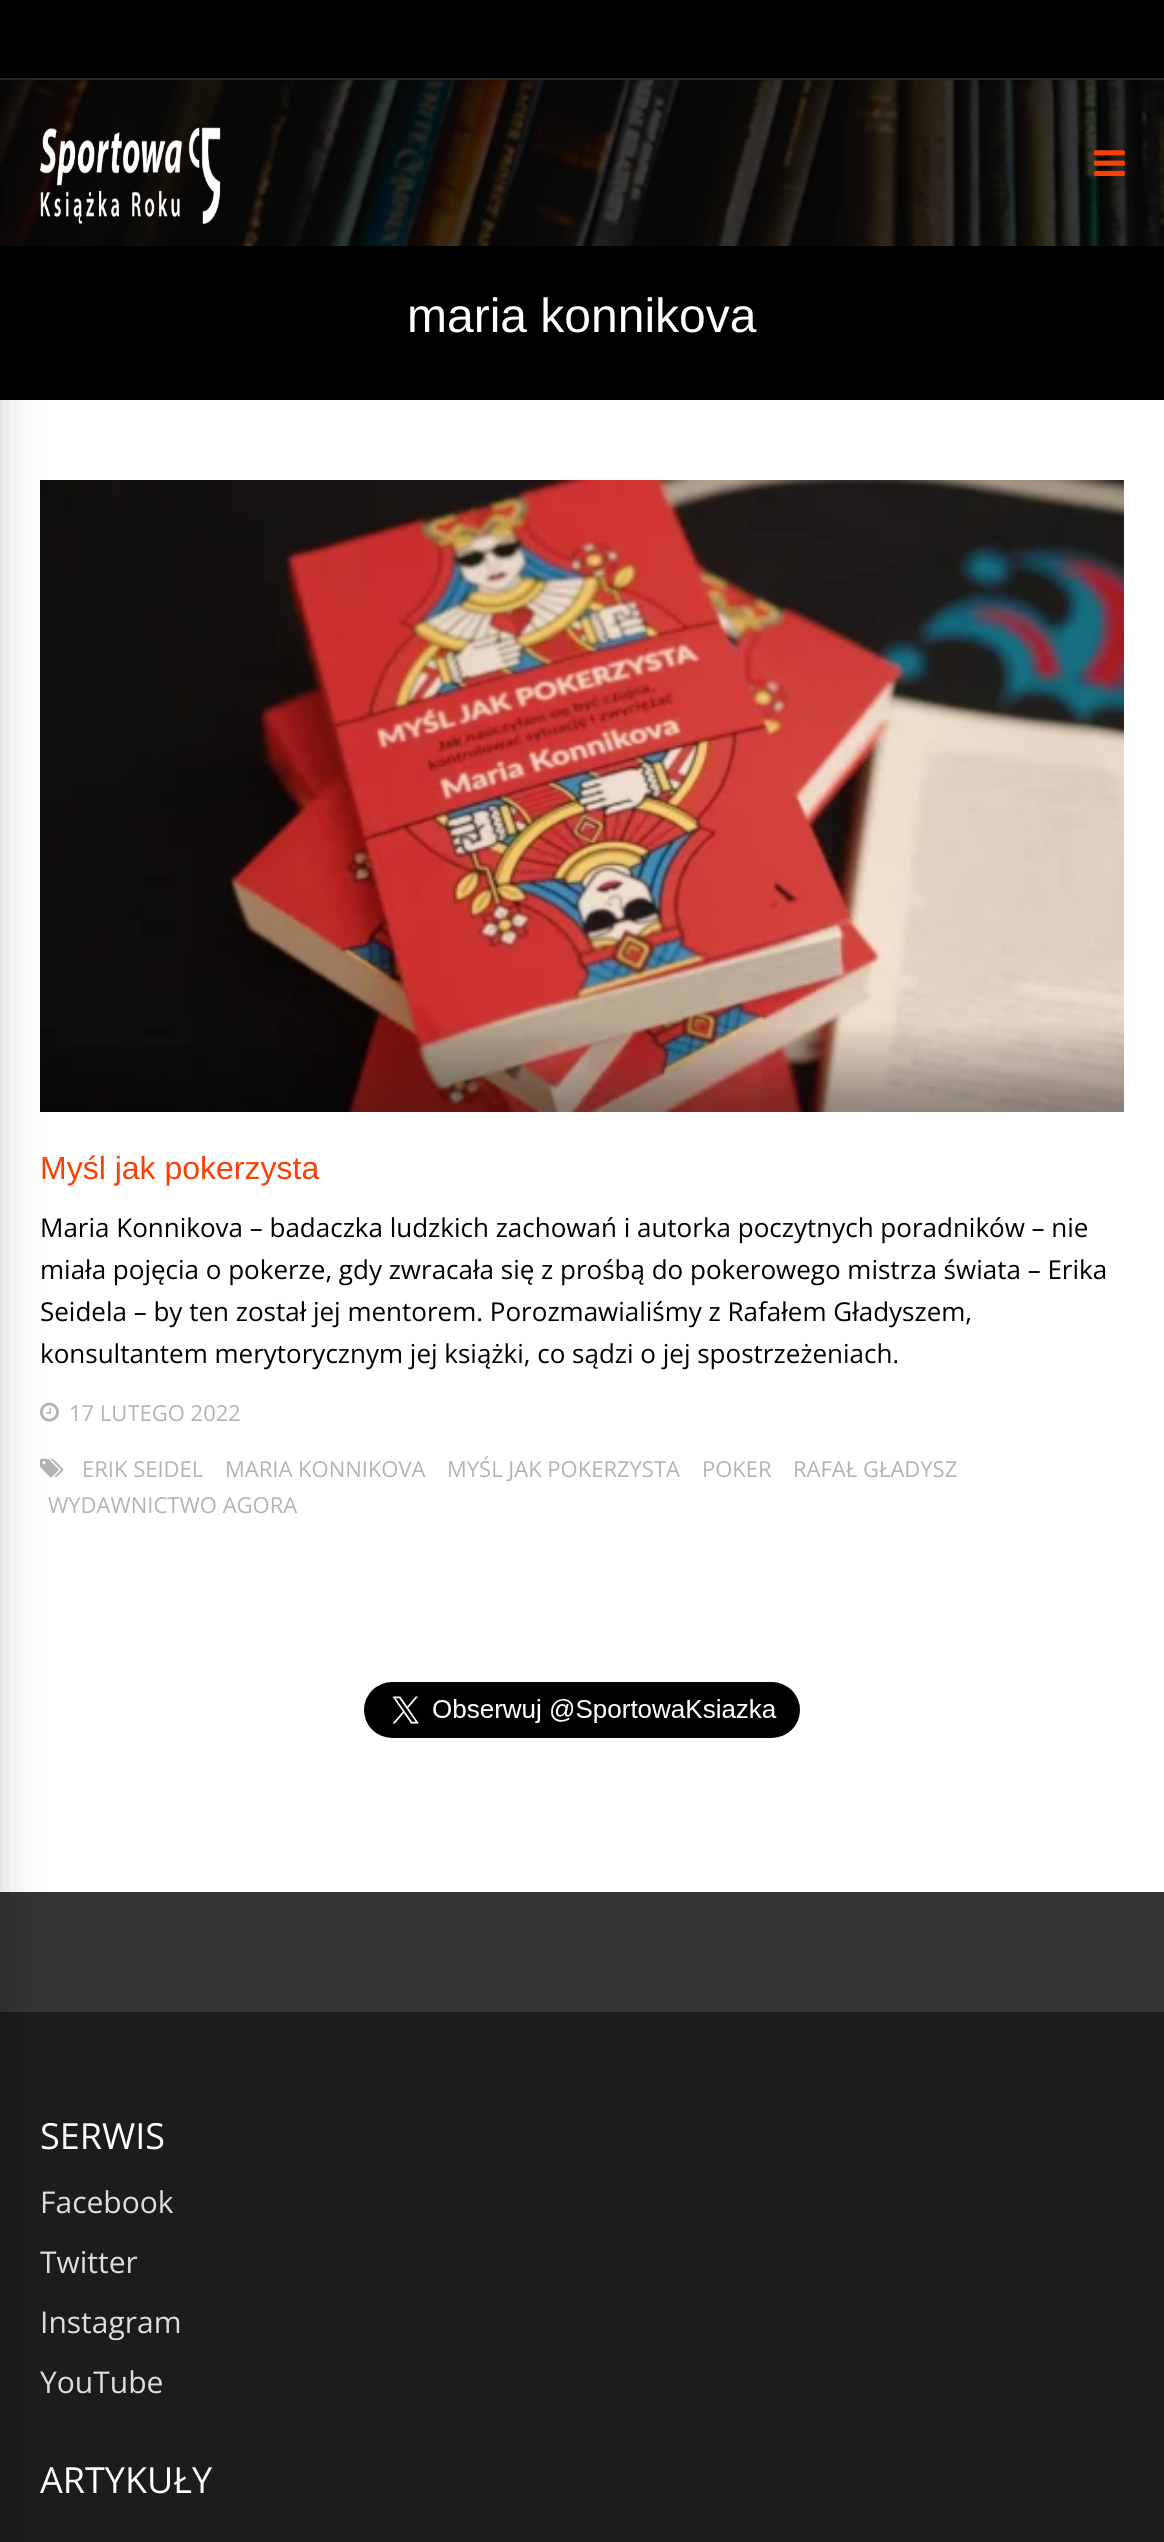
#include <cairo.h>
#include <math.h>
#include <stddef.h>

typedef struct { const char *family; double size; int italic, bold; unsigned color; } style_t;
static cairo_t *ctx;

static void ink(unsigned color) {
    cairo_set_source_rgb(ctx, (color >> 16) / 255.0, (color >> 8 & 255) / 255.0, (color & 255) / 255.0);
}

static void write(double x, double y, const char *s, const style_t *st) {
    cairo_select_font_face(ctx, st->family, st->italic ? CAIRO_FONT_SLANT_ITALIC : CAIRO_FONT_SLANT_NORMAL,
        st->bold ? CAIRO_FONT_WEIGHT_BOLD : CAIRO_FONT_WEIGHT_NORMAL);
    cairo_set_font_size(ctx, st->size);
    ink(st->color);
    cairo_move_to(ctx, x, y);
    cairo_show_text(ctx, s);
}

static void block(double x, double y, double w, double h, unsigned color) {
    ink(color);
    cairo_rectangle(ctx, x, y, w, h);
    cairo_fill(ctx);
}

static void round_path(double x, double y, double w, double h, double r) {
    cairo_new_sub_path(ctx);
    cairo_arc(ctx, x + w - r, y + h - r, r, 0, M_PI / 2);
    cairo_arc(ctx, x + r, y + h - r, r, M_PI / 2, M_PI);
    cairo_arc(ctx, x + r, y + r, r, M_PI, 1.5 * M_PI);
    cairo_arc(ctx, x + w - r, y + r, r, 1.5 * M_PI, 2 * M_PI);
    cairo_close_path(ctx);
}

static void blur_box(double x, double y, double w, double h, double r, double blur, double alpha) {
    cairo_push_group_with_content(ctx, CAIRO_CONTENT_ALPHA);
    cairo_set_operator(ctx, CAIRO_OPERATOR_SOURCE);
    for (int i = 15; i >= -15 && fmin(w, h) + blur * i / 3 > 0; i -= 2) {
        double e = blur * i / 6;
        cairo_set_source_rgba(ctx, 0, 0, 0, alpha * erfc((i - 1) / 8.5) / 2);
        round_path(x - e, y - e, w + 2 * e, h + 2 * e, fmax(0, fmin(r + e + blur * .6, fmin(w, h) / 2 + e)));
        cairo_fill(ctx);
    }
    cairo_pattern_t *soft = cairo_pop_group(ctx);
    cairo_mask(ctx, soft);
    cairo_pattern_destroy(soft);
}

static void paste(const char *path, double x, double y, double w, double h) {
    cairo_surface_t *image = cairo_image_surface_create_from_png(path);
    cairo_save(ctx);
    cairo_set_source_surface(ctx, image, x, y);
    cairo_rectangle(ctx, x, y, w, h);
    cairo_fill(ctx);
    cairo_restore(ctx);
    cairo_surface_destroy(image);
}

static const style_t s1 = {"Liberation Sans", 48, 0, 0, 0xffffff};
static const style_t s2 = {"Liberation Sans", 32, 0, 0, 0xf84103};
static const style_t s3 = {"Open Sans", 26, 0, 0, 0x000000};
static const style_t s4 = {"Open Sans", 22, 0, 0, 0xb3b3b1};
static const style_t s5 = {"Open Sans", 36, 0, 0, 0xffffff};
static const style_t s6 = {"Open Sans", 30, 0, 0, 0xdddddd};

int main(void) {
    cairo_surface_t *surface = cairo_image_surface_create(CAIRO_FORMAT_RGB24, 1164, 2542);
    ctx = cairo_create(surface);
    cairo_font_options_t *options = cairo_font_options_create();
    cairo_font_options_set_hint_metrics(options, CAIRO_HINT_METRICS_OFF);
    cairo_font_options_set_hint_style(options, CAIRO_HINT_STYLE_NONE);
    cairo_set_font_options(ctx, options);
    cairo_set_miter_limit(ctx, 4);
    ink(0xffffff);
    cairo_paint(ctx);
    block(0, 0, 1164, 78, 0x000000);
    block(0, 78, 1164, 2, 0x292929);
    block(0, 80, 1164, 320, 0x000000);
    paste("pic1.png", 0, 80, 1164, 166);
    paste("pic2.png", 40, 127, 181, 97);
    paste("pic4.png", 40, 480, 1084, 632);
    paste("pic5.png", 40, 1402, 19, 20);
    paste("pic6.png", 40, 1458, 24, 20);
    block(0, 1892, 1164, 120, 0x333333);
    block(0, 2012, 1164, 530, 0x1c1c1c);
    ink(0x000000);
    blur_box(-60, 0, 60, 2542, 0, 20, 0.2);
    paste("pic3.png", 1094, 150, 31, 26);
    write(407, 332, "maria konnikova", &s1);
    write(40, 1179, "Myśl jak pokerzysta", &s2);
    write(40, 1237, "Maria Konnikova – badaczka ludzkich zachowań i autorka poczytnych poradników – nie", &s3);
    write(40, 1279, "miała pojęcia o pokerze, gdy zwracała się z prośbą do pokerowego mistrza świata – Erika", &s3);
    write(40, 1321, "Seidela – by ten został jej mentorem. Porozmawialiśmy z Rafałem Gładyszem,", &s3);
    write(40, 1363, "konsultantem merytorycznym jej książki, co sądzi o jej spostrzeżeniach.", &s3);
    write(69, 1421, "17 LUTEGO 2022", &s4);
    write(82, 1477, "ERIK SEIDEL", &s4);
    write(225, 1477, "MARIA KONNIKOVA", &s4);
    write(447, 1477, "MYŚL JAK POKERZYSTA", &s4);
    write(702, 1477, "POKER", &s4);
    write(793, 1477, "RAFAŁ GŁADYSZ", &s4);
    write(48, 1513, "WYDAWNICTWO AGORA", &s4);
    paste("pic7.png", 364, 1682, 436, 56);
    write(40, 2149, "SERWIS", &s5);
    write(40, 2213, "Facebook", &s6);
    write(40, 2273, "Twitter", &s6);
    write(40, 2333, "Instagram", &s6);
    write(40, 2393, "YouTube", &s6);
    write(40, 2493, "ARTYKUŁY", &s5);
    cairo_surface_write_to_png(surface, "screenshot.png");
    cairo_font_options_destroy(options);
    cairo_destroy(ctx);
    cairo_surface_destroy(surface);
    return 0;
}
